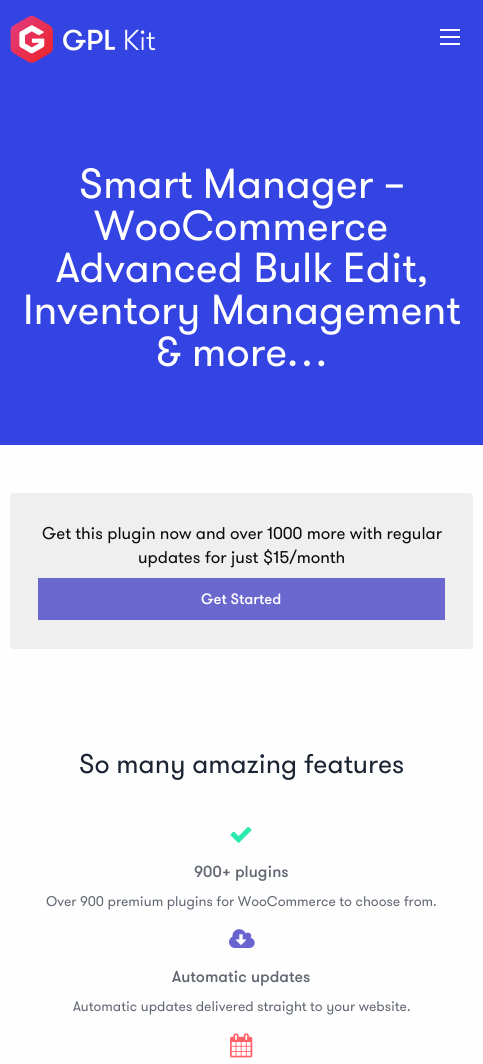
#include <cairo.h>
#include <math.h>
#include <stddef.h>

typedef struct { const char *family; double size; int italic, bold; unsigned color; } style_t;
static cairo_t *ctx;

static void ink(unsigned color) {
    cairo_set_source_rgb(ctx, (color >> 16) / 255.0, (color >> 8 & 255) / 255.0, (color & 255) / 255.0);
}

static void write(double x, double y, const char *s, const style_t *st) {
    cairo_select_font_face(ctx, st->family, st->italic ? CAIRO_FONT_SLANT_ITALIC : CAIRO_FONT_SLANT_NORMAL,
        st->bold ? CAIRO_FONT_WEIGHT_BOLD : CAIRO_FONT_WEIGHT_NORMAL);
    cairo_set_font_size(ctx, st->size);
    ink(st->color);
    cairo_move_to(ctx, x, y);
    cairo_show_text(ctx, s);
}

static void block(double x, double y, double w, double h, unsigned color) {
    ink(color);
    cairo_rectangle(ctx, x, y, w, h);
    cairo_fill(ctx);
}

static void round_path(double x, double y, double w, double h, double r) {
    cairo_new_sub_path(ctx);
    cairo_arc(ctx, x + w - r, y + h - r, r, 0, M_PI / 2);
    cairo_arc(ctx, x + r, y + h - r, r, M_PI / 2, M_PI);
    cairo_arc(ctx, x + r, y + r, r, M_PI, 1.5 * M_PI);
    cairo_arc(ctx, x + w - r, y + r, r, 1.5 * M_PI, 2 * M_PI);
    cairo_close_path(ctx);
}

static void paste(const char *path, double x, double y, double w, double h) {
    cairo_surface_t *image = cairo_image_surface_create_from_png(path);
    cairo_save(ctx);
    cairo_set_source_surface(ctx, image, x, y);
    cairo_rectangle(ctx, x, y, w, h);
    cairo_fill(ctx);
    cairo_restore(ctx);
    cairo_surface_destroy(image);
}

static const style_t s1 = {"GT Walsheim", 42, 0, 0, 0xffffff};
static const style_t s2 = {"GT Walsheim", 17, 0, 0, 0x0a0a0a};
static const style_t s3 = {"GT Walsheim Medium", 15, 0, 0, 0xffffff};
static const style_t s4 = {"GT Walsheim", 27, 0, 0, 0x1b2432};
static const style_t s5 = {"GT Walsheim Medium", 16, 0, 0, 0x626873};
static const style_t s6 = {"GT Walsheim", 14, 0, 0, 0x626873};

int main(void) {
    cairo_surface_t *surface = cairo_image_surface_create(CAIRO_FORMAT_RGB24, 483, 1064);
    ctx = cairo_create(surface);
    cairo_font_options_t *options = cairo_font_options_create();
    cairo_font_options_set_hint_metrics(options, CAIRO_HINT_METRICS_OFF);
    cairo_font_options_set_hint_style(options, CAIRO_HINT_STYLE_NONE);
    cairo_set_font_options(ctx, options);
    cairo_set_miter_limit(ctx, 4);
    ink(0xfefefe);
    cairo_paint(ctx);
    block(0, 0, 483, 445, 0x3444e3);
    paste("pic1.png", 10, 16, 146, 47);
    block(440, 43, 20, 2, 0xfefefe);
    block(440, 36, 20, 2, 0xfefefe);
    block(440, 29, 20, 2, 0xfefefe);
    write(79, 198, "Smart Manager –", &s1);
    write(94, 240, "WooCommerce", &s1);
    write(56, 282, "Advanced Bulk Edit,", &s1);
    write(23, 324, "Inventory Management", &s1);
    write(156, 366, "& more…", &s1);
    ink(0xefefef);
    round_path(10, 493, 463, 156, 4);
    cairo_fill(ctx);
    write(42, 539, "Get this plugin now and over 1000 more with regular", &s2);
    write(138, 563, "updates for just $15/month", &s2);
    block(38, 578, 407, 42, 0x6a67ce);
    write(201, 604, "Get Started", &s3);
    write(79, 773, "So many amazing features", &s4);
    paste("pic2.png", 230, 826, 22, 17);
    write(194, 877, "900+ plugins", &s5);
    write(46, 906, "Over 900 premium plugins for WooCommerce to choose from.", &s6);
    paste("pic3.png", 229, 929, 26, 19);
    write(172, 982, "Automatic updates", &s5);
    write(73, 1011, "Automatic updates delivered straight to your website.", &s6);
    paste("pic4.png", 230, 1033, 23, 25);
    cairo_surface_write_to_png(surface, "screenshot.png");
    cairo_font_options_destroy(options);
    cairo_destroy(ctx);
    cairo_surface_destroy(surface);
    return 0;
}
